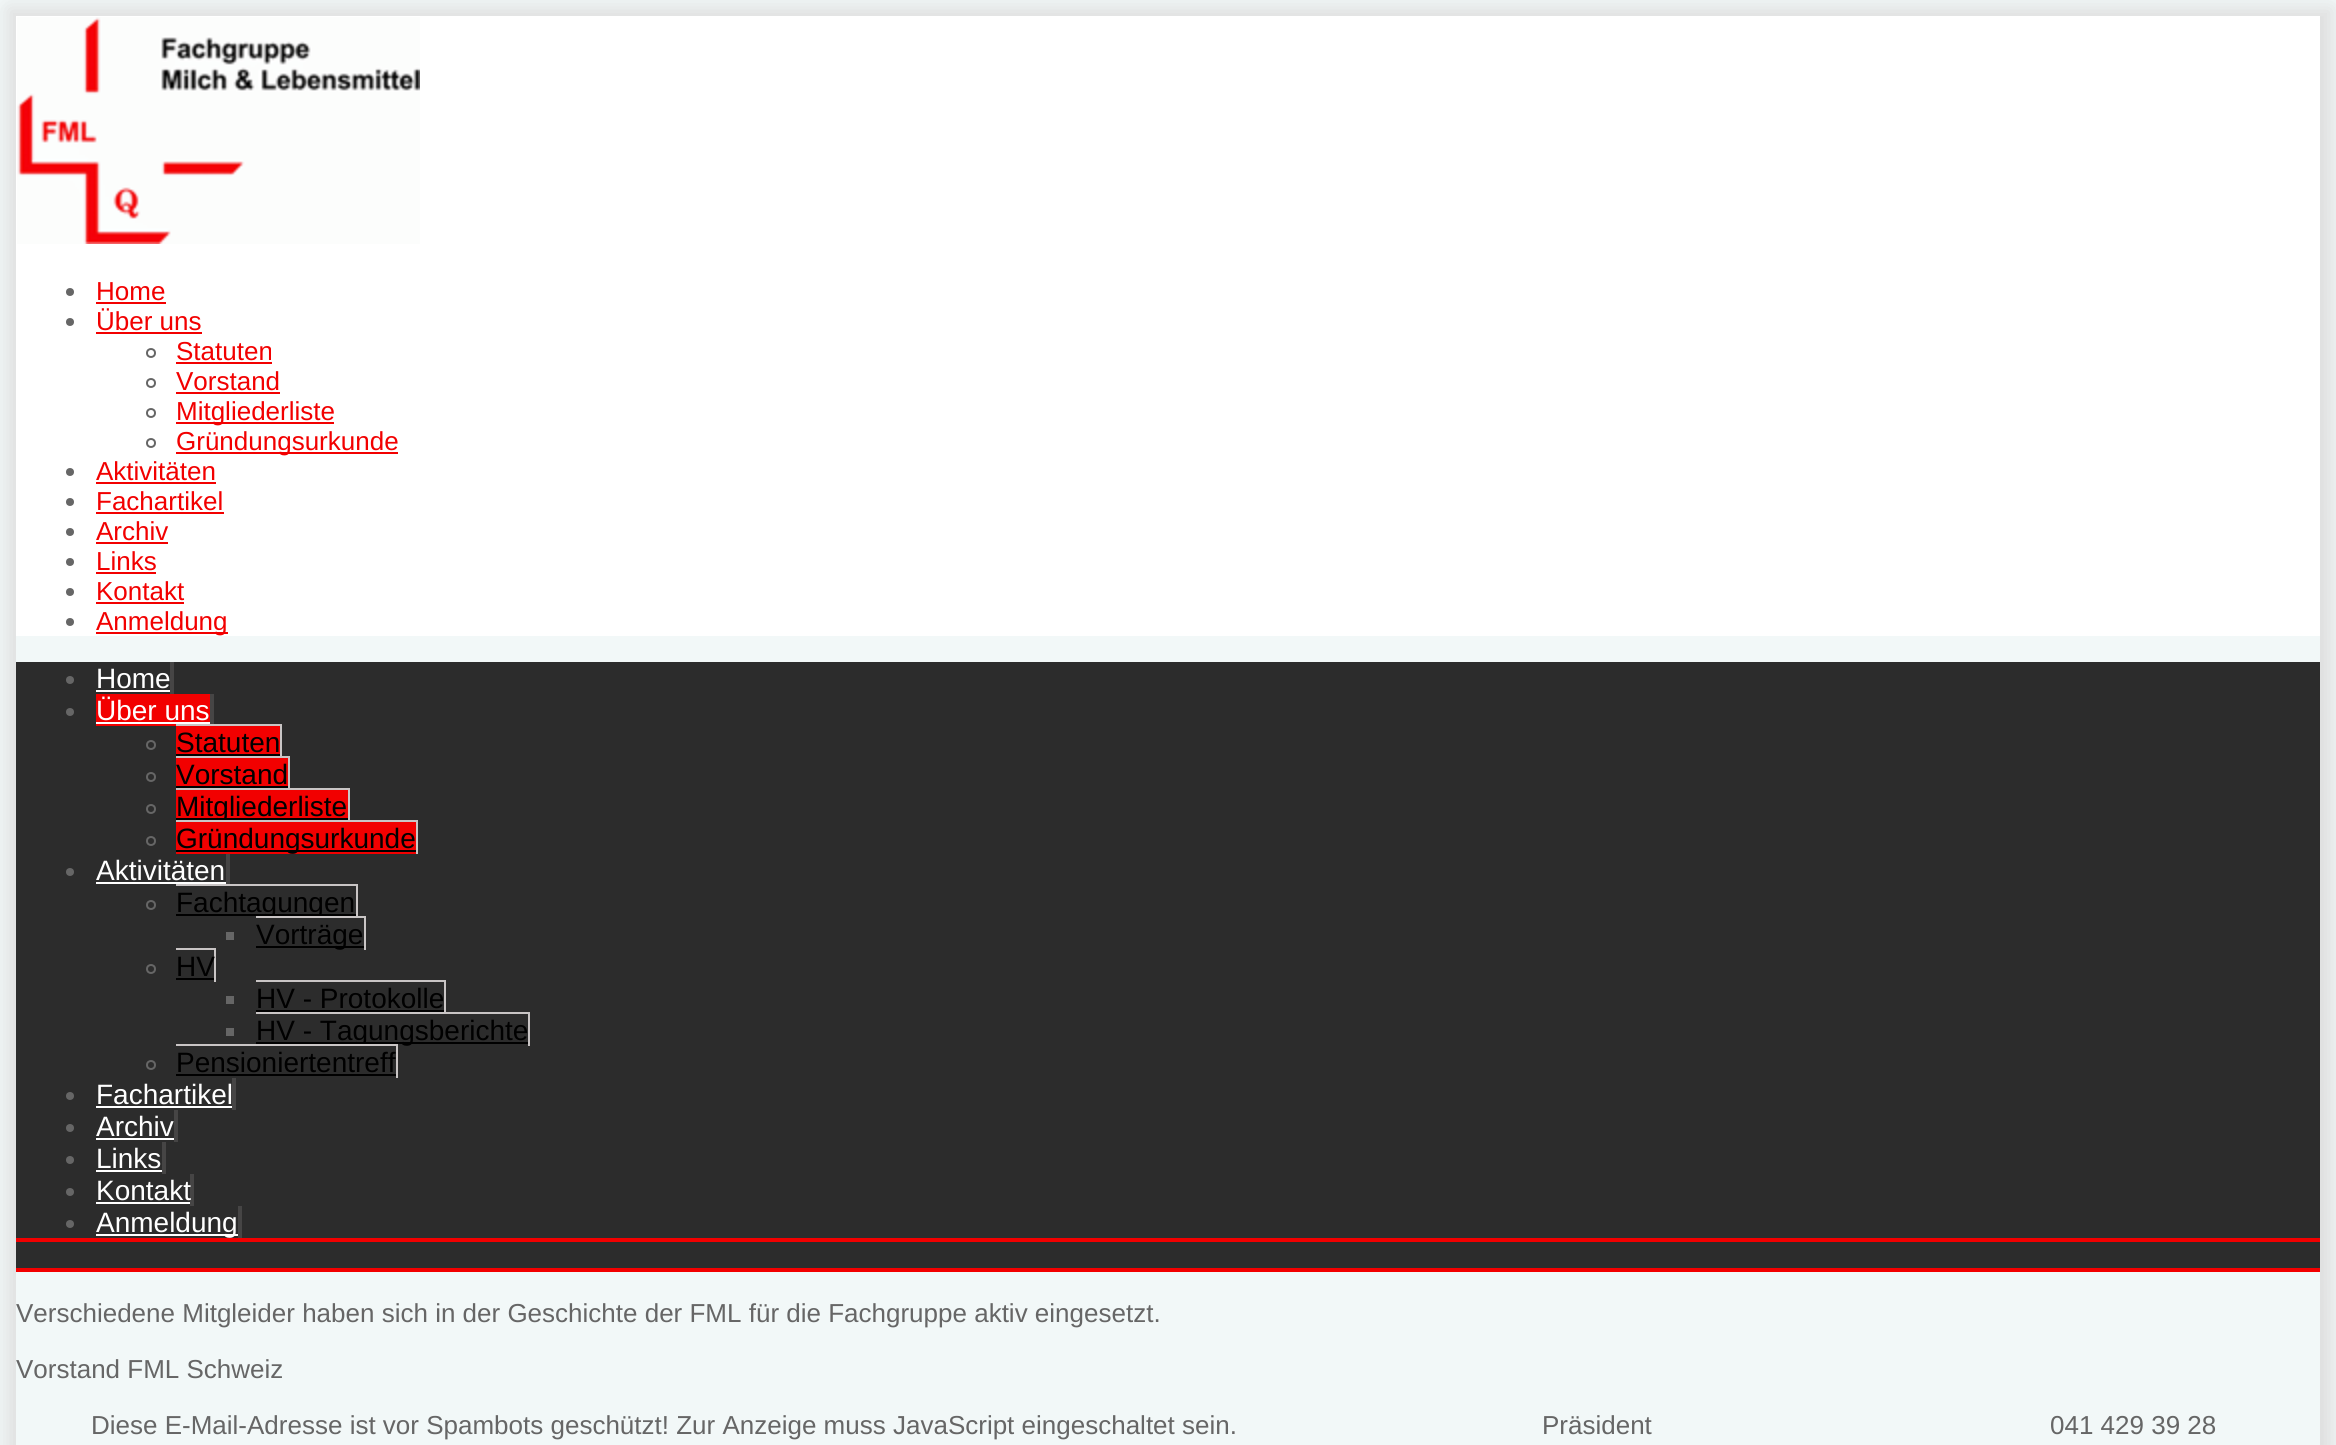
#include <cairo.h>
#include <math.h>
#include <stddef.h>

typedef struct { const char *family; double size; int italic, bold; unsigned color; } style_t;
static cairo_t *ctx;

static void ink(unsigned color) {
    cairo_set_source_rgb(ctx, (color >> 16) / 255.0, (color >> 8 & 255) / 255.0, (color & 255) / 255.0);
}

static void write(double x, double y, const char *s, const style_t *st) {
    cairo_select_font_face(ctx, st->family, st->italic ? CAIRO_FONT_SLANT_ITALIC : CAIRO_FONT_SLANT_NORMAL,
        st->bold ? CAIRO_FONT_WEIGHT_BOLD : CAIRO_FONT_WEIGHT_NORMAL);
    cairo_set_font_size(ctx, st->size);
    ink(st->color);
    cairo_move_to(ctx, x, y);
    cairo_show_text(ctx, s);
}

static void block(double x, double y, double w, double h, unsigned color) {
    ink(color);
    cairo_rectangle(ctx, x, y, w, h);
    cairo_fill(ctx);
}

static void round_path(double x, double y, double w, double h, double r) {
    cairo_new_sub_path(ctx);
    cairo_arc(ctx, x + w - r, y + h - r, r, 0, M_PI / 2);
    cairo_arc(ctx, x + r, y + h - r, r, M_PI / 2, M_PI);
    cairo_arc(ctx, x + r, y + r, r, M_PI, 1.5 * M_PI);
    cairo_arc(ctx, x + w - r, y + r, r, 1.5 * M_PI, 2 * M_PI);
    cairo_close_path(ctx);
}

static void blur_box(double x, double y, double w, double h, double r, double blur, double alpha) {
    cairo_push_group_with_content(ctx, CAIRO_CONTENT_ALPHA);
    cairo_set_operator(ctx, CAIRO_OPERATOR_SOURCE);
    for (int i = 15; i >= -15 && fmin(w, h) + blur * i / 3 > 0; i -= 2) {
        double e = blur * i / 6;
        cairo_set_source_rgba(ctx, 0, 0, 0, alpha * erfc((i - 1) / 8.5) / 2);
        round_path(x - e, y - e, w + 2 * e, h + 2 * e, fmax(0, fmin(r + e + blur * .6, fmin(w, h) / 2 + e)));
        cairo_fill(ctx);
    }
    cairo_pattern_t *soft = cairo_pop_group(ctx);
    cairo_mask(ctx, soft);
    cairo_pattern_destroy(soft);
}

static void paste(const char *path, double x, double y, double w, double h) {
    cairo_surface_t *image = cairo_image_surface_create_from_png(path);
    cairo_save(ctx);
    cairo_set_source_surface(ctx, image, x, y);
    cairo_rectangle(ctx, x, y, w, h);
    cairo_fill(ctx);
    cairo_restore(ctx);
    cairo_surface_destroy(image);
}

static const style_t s1 = {"Liberation Sans", 26, 0, 0, 0xf20000};
static const style_t s2 = {"Liberation Sans", 28, 0, 0, 0xffffff};
static const style_t s3 = {"Liberation Sans", 28, 0, 0, 0x000000};
static const style_t s4 = {"Liberation Sans", 26, 0, 0, 0x666666};

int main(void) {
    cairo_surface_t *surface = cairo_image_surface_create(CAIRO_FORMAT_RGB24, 2336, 1445);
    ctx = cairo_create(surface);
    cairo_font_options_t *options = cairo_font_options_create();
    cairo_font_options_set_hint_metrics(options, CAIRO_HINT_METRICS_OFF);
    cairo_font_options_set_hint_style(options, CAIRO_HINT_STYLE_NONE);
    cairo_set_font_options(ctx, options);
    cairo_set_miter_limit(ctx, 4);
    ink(0xf2f8f8);
    cairo_paint(ctx);
    cairo_save(ctx);
    cairo_set_fill_rule(ctx, CAIRO_FILL_RULE_EVEN_ODD);
    cairo_new_path(ctx);
    cairo_move_to(ctx, 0, 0);
    cairo_line_to(ctx, 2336, 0);
    cairo_line_to(ctx, 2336, 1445);
    cairo_line_to(ctx, 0, 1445);
    cairo_close_path(ctx);
    cairo_move_to(ctx, 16, 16);
    cairo_line_to(ctx, 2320, 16);
    cairo_line_to(ctx, 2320, 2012);
    cairo_line_to(ctx, 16, 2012);
    cairo_close_path(ctx);
    cairo_clip(ctx);
    ink(0xdddddd);
    blur_box(8, 8, 2324, 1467, 0, 10, 1);
    cairo_restore(ctx);
    block(16, 16, 2304, 620, 0xffffff);
    paste("pic1.png", 17, 17, 403, 227);
    ink(0x666666);
    cairo_arc(ctx, 70, 292, 4, 0, 2 * M_PI);
    cairo_fill(ctx);
    write(96, 300, "Home", &s1);
    block(96, 302, 70, 2, 0xf20000);
    ink(0x666666);
    cairo_new_path(ctx);
    cairo_arc(ctx, 70, 322, 4, 0, 2 * M_PI);
    cairo_fill(ctx);
    write(96, 330, "Über uns", &s1);
    block(96, 332, 106, 2, 0xf20000);
    cairo_new_path(ctx);
    cairo_arc(ctx, 151, 353, 4, 0, 2 * M_PI);
    ink(0x666666);
    cairo_stroke(ctx);
    write(176, 360, "Statuten", &s1);
    block(176, 362, 96, 2, 0xf20000);
    cairo_new_path(ctx);
    cairo_arc(ctx, 151, 383, 4, 0, 2 * M_PI);
    ink(0x666666);
    cairo_stroke(ctx);
    write(176, 390, "Vorstand", &s1);
    block(176, 392, 104, 2, 0xf20000);
    cairo_new_path(ctx);
    cairo_arc(ctx, 151, 413, 4, 0, 2 * M_PI);
    ink(0x666666);
    cairo_stroke(ctx);
    block(176, 422, 158, 2, 0xf20000);
    write(176, 420, "Mitgliederliste", &s1);
    cairo_new_path(ctx);
    cairo_arc(ctx, 151, 443, 4, 0, 2 * M_PI);
    ink(0x666666);
    cairo_stroke(ctx);
    block(176, 452, 222, 2, 0xf20000);
    write(176, 450, "Gründungsurkunde", &s1);
    ink(0x666666);
    cairo_new_path(ctx);
    cairo_arc(ctx, 70, 472, 4, 0, 2 * M_PI);
    cairo_fill(ctx);
    write(96, 480, "Aktivitäten", &s1);
    block(96, 482, 120, 2, 0xf20000);
    ink(0x666666);
    cairo_new_path(ctx);
    cairo_arc(ctx, 70, 502, 4, 0, 2 * M_PI);
    cairo_fill(ctx);
    write(96, 510, "Fachartikel", &s1);
    block(96, 512, 128, 2, 0xf20000);
    ink(0x666666);
    cairo_new_path(ctx);
    cairo_arc(ctx, 70, 532, 4, 0, 2 * M_PI);
    cairo_fill(ctx);
    write(96, 540, "Archiv", &s1);
    block(96, 542, 72, 2, 0xf20000);
    ink(0x666666);
    cairo_new_path(ctx);
    cairo_arc(ctx, 70, 562, 4, 0, 2 * M_PI);
    cairo_fill(ctx);
    write(96, 570, "Links", &s1);
    block(96, 572, 60, 2, 0xf20000);
    ink(0x666666);
    cairo_new_path(ctx);
    cairo_arc(ctx, 70, 592, 4, 0, 2 * M_PI);
    cairo_fill(ctx);
    write(96, 600, "Kontakt", &s1);
    block(96, 602, 88, 2, 0xf20000);
    ink(0x666666);
    cairo_new_path(ctx);
    cairo_arc(ctx, 70, 622, 4, 0, 2 * M_PI);
    cairo_fill(ctx);
    block(96, 632, 132, 2, 0xf20000);
    write(96, 630, "Anmeldung", &s1);
    block(16, 662, 2304, 606, 0x2c2c2c);
    block(16, 1268, 2304, 4, 0xf20000);
    block(16, 1238, 2304, 4, 0xf20000);
    ink(0x666666);
    cairo_new_path(ctx);
    cairo_arc(ctx, 70, 680, 4, 0, 2 * M_PI);
    cairo_fill(ctx);
    write(96, 688, "Home", &s2);
    block(170, 662, 4, 32, 0x464545);
    block(96, 690, 74, 2, 0xffffff);
    ink(0x666666);
    cairo_new_path(ctx);
    cairo_arc(ctx, 70, 712, 4, 0, 2 * M_PI);
    cairo_fill(ctx);
    block(96, 694, 114, 32, 0xf20000);
    write(96, 720, "Über uns", &s2);
    block(210, 694, 4, 32, 0x464545);
    block(96, 722, 114, 2, 0xffffff);
    cairo_new_path(ctx);
    cairo_arc(ctx, 151, 745, 4, 0, 2 * M_PI);
    ink(0x666666);
    cairo_stroke(ctx);
    block(176, 726, 104, 28, 0xf20000);
    write(176, 752, "Statuten", &s3);
    block(176, 724, 106, 2, 0xc9c5c5);
    block(280, 724, 2, 34, 0xc9c5c5);
    block(176, 754, 104, 2, 0x000000);
    cairo_new_path(ctx);
    cairo_arc(ctx, 151, 777, 4, 0, 2 * M_PI);
    ink(0x666666);
    cairo_stroke(ctx);
    block(176, 758, 112, 28, 0xf20000);
    write(176, 784, "Vorstand", &s3);
    block(176, 756, 114, 2, 0xc9c5c5);
    block(288, 756, 2, 34, 0xc9c5c5);
    block(176, 786, 112, 2, 0x000000);
    cairo_new_path(ctx);
    cairo_arc(ctx, 151, 809, 4, 0, 2 * M_PI);
    ink(0x666666);
    cairo_stroke(ctx);
    block(176, 790, 172, 28, 0xf20000);
    block(176, 818, 172, 2, 0x000000);
    write(176, 816, "Mitgliederliste", &s3);
    block(176, 788, 174, 2, 0xc9c5c5);
    block(348, 788, 2, 34, 0xc9c5c5);
    cairo_new_path(ctx);
    cairo_arc(ctx, 151, 841, 4, 0, 2 * M_PI);
    ink(0x666666);
    cairo_stroke(ctx);
    block(176, 822, 240, 32, 0xf20000);
    block(176, 850, 240, 2, 0x000000);
    write(176, 848, "Gründungsurkunde", &s3);
    block(176, 820, 242, 2, 0xc9c5c5);
    block(416, 820, 2, 34, 0xc9c5c5);
    ink(0x666666);
    cairo_new_path(ctx);
    cairo_arc(ctx, 70, 872, 4, 0, 2 * M_PI);
    cairo_fill(ctx);
    write(96, 880, "Aktivitäten", &s2);
    block(226, 854, 4, 32, 0x464545);
    block(96, 882, 130, 2, 0xffffff);
    cairo_new_path(ctx);
    cairo_arc(ctx, 151, 905, 4, 0, 2 * M_PI);
    ink(0x666666);
    cairo_stroke(ctx);
    block(176, 914, 180, 2, 0x000000);
    write(176, 912, "Fachtagungen", &s3);
    block(176, 884, 182, 2, 0xc9c5c5);
    block(356, 884, 2, 34, 0xc9c5c5);
    block(226, 932, 8, 8, 0x666666);
    block(256, 946, 108, 2, 0x000000);
    write(256, 944, "Vorträge", &s3);
    block(256, 916, 110, 2, 0xc9c5c5);
    block(364, 916, 2, 34, 0xc9c5c5);
    cairo_new_path(ctx);
    cairo_arc(ctx, 151, 969, 4, 0, 2 * M_PI);
    ink(0x666666);
    cairo_stroke(ctx);
    block(176, 948, 40, 2, 0xc9c5c5);
    block(214, 948, 2, 34, 0xc9c5c5);
    write(176, 976, "HV", &s3);
    block(176, 978, 38, 2, 0x000000);
    block(226, 996, 8, 8, 0x666666);
    write(256, 1008, "HV - Protokolle", &s3);
    block(256, 980, 190, 2, 0xc9c5c5);
    block(444, 980, 2, 34, 0xc9c5c5);
    block(256, 1010, 188, 2, 0x000000);
    block(226, 1028, 8, 8, 0x666666);
    block(256, 1042, 272, 2, 0x000000);
    write(256, 1040, "HV - Tagungsberichte", &s3);
    block(256, 1012, 274, 2, 0xc9c5c5);
    block(528, 1012, 2, 34, 0xc9c5c5);
    cairo_new_path(ctx);
    cairo_arc(ctx, 151, 1065, 4, 0, 2 * M_PI);
    ink(0x666666);
    cairo_stroke(ctx);
    write(176, 1072, "Pensioniertentreff", &s3);
    block(176, 1044, 222, 2, 0xc9c5c5);
    block(396, 1044, 2, 34, 0xc9c5c5);
    block(176, 1074, 220, 2, 0x000000);
    ink(0x666666);
    cairo_new_path(ctx);
    cairo_arc(ctx, 70, 1096, 4, 0, 2 * M_PI);
    cairo_fill(ctx);
    write(96, 1104, "Fachartikel", &s2);
    block(232, 1078, 4, 32, 0x464545);
    block(96, 1106, 136, 2, 0xffffff);
    ink(0x666666);
    cairo_new_path(ctx);
    cairo_arc(ctx, 70, 1128, 4, 0, 2 * M_PI);
    cairo_fill(ctx);
    write(96, 1136, "Archiv", &s2);
    block(174, 1110, 4, 32, 0x464545);
    block(96, 1138, 78, 2, 0xffffff);
    ink(0x666666);
    cairo_new_path(ctx);
    cairo_arc(ctx, 70, 1160, 4, 0, 2 * M_PI);
    cairo_fill(ctx);
    write(96, 1168, "Links", &s2);
    block(162, 1142, 4, 32, 0x464545);
    block(96, 1170, 66, 2, 0xffffff);
    ink(0x666666);
    cairo_new_path(ctx);
    cairo_arc(ctx, 70, 1192, 4, 0, 2 * M_PI);
    cairo_fill(ctx);
    block(190, 1174, 4, 32, 0x464545);
    write(96, 1200, "Kontakt", &s2);
    block(96, 1202, 94, 2, 0xffffff);
    ink(0x666666);
    cairo_new_path(ctx);
    cairo_arc(ctx, 70, 1224, 4, 0, 2 * M_PI);
    cairo_fill(ctx);
    block(96, 1234, 142, 2, 0xffffff);
    write(96, 1232, "Anmeldung", &s2);
    block(238, 1206, 4, 32, 0x464545);
    write(16, 1322, "Verschiedene Mitgleider haben sich in der Geschichte der FML für die Fachgruppe aktiv eingesetzt.", &s4);
    write(16, 1378, "Vorstand FML Schweiz", &s4);
    write(91, 1434, "Diese E-Mail-Adresse ist vor Spambots geschützt! Zur Anzeige muss JavaScript eingeschaltet sein.", &s4);
    write(1542, 1434, "Präsident", &s4);
    write(2050, 1434, "041 429 39 28", &s4);
    cairo_surface_write_to_png(surface, "screenshot.png");
    cairo_font_options_destroy(options);
    cairo_destroy(ctx);
    cairo_surface_destroy(surface);
    return 0;
}
